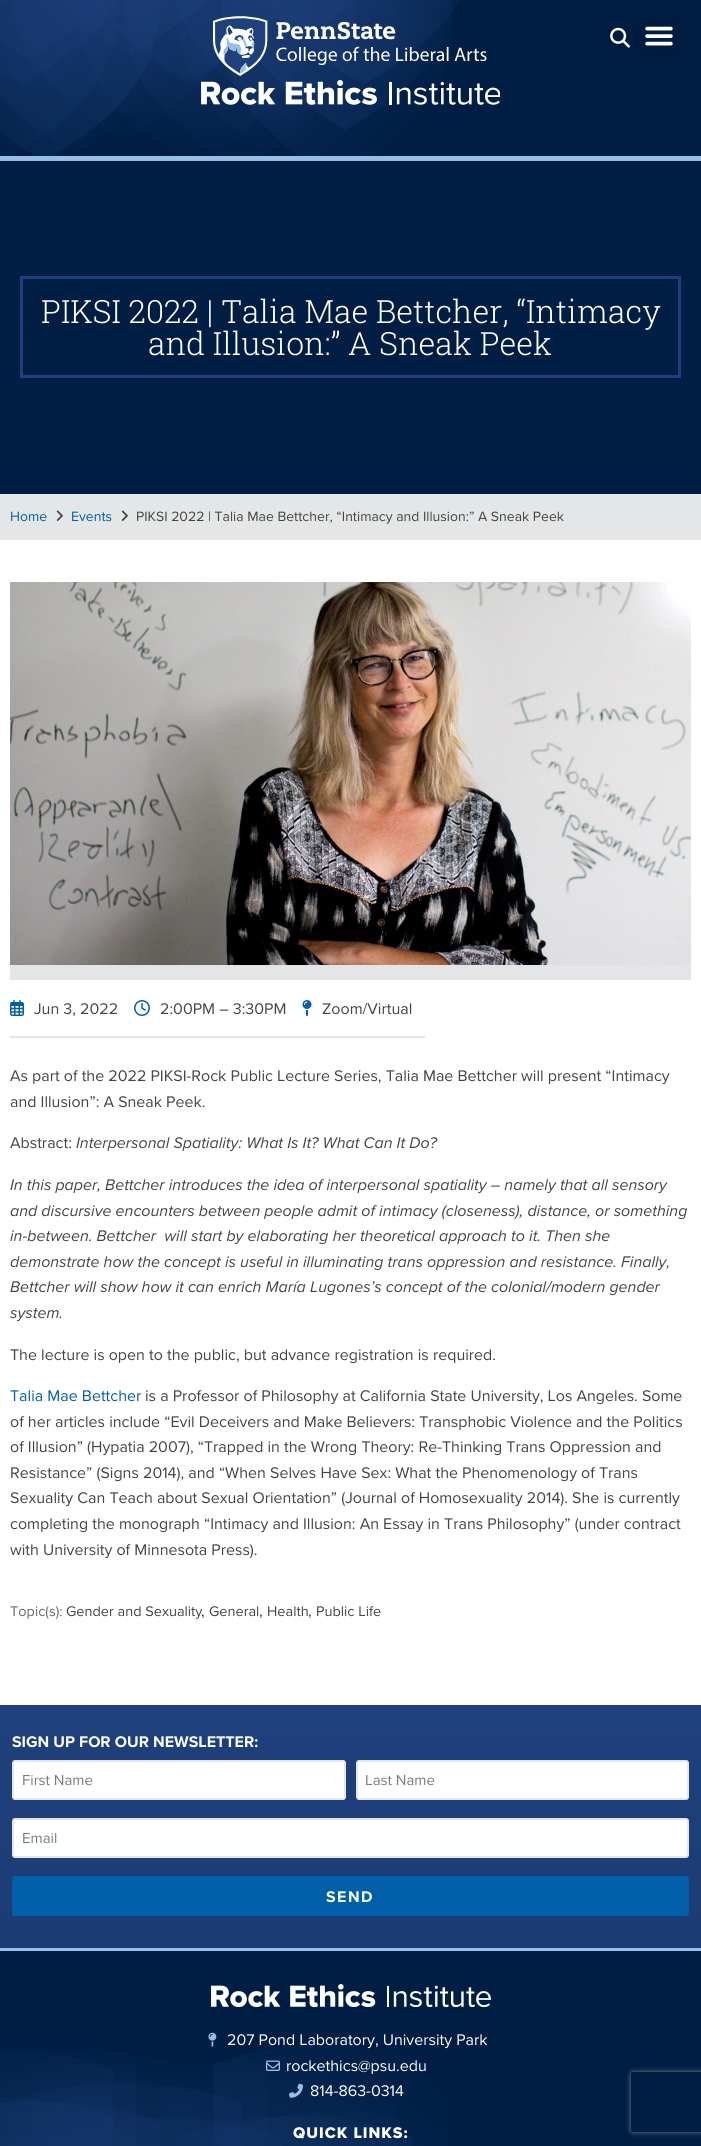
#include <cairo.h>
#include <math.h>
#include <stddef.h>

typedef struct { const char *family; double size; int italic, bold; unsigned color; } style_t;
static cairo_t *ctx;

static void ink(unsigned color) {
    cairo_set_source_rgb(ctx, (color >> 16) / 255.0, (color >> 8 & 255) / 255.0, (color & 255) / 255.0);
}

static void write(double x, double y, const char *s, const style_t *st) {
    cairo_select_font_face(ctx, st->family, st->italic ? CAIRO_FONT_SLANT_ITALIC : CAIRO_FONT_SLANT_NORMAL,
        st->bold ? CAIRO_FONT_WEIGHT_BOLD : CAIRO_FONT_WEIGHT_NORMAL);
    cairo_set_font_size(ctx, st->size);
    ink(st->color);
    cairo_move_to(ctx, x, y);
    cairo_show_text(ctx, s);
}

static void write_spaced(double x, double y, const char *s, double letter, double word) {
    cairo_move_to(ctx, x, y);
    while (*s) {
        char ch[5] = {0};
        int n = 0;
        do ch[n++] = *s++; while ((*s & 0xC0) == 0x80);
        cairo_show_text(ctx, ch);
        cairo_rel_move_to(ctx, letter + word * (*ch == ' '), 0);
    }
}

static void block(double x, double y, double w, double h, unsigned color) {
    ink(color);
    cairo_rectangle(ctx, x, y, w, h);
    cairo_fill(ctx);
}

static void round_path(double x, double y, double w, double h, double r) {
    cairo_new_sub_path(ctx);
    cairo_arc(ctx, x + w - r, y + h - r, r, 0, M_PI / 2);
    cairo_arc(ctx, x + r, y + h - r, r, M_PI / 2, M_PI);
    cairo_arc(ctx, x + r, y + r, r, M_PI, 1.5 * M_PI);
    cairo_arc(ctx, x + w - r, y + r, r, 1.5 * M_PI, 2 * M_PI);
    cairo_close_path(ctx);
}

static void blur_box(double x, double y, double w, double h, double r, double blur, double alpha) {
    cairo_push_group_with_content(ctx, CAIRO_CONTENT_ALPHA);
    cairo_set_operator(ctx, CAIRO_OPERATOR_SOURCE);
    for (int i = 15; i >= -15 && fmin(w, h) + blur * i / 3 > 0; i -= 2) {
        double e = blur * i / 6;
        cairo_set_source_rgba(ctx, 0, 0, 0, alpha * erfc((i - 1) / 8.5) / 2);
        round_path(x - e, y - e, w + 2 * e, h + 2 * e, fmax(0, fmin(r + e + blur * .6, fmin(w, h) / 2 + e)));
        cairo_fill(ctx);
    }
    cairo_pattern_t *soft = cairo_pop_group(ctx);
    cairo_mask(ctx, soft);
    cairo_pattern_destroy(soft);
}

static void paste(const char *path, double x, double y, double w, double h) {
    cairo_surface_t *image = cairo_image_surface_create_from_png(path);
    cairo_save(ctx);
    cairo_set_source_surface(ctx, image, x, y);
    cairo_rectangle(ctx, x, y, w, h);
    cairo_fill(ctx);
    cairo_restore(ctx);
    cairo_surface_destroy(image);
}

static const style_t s1 = {"Roboto Slab Light", 32, 0, 0, 0xffffff};
static const style_t s2 = {"Proxima Nova", 14, 0, 0, 0x005fa9};
static const style_t s3 = {"Proxima Nova", 14, 0, 0, 0x444444};
static const style_t s4 = {"Proxima Nova", 16, 0, 0, 0x444444};
static const style_t s5 = {"Proxima Nova", 16, 1, 0, 0x444444};
static const style_t s6 = {"Proxima Nova", 16, 0, 0, 0x005fa9};
static const style_t s7 = {"Proxima Nova", 14.5, 0, 0, 0x666666};
static const style_t s8 = {"Proxima Nova", 14.5, 0, 0, 0x444444};
static const style_t s9 = {"Proxima Nova", 16, 0, 1, 0xffffff};
static const style_t s10 = {"Proxima Nova", 15, 0, 0, 0x797a7c};
static const style_t s11 = {"Proxima Nova", 16, 0, 0, 0xffffff};

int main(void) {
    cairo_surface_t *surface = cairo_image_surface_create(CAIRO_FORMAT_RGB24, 701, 2146);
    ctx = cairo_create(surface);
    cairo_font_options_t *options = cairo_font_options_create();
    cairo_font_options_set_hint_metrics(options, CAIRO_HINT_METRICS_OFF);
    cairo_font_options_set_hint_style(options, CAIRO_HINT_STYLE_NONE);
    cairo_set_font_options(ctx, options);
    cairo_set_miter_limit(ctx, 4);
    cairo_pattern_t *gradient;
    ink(0xffffff);
    cairo_paint(ctx);
    block(0, 0, 701, 156, 0x001e44);
    paste("pic1.png", 0, 0, 460, 156);
    ink(0x001d41);
    round_path(603, 21, 33, 33, 3);
    cairo_fill(ctx);
    paste("pic2.png", 610, 27, 20, 21);
    block(636, 13, 45, 45, 0x001d41);
    paste("pic3.png", 645, 26, 28, 20);
    paste("pic4.png", 201, 80, 299, 25);
    paste("pic5.png", 213, 16, 274, 60);
    block(0, 156, 701, 5, 0x96bee6);
    block(0, 161, 701, 333, 0x001e44);
    cairo_rectangle(ctx, 21.5, 277.5, 658, 99);
    ink(0x1e407c);
    cairo_set_line_width(ctx, 3);
    cairo_stroke(ctx);
    write(41, 323, "PIKSI 2022 | Talia Mae Bettcher, “Intimacy", &s1);
    write(148, 355, "and Illusion:” A Sneak Peek", &s1);
    block(0, 494, 701, 46, 0xe4e6e7);
    write(10, 521, "Home", &s2);
    paste("pic6.png", 56, 510, 7, 11);
    write(71, 521, "Events", &s2);
    paste("pic6.png", 121, 510, 7, 11);
    write(136, 521, "PIKSI 2022 | Talia Mae Bettcher, “Intimacy and Illusion:” A Sneak Peek", &s3);
    paste("pic7.png", 10, 582, 681, 383);
    block(10, 965, 681, 15, 0xe4e5e7);
    paste("pic8.png", 10, 1000, 14, 16);
    write(34, 1014, "Jun 3, 2022", &s4);
    paste("pic9.png", 134, 1000, 16, 16);
    write(160, 1014, "2:00PM – 3:30PM", &s4);
    paste("pic10.png", 302, 1000, 10, 16);
    write(322, 1014, "Zoom/Virtual", &s4);
    block(10, 1036, 415, 2, 0xe4e5e7);
    write(10, 1081, "As part of the 2022 PIKSI-Rock Public Lecture Series, Talia Mae Bettcher will present “Intimacy", &s4);
    write(10, 1107, "and Illusion”: A Sneak Peek.", &s4);
    write(10, 1148, "Abstract:", &s4);
    write(76, 1148, "Interpersonal Spatiality: What Is It? What Can It Do?", &s5);
    write(10, 1190, "In this paper, Bettcher introduces the idea of interpersonal spatiality – namely that all sensory", &s5);
    write(10, 1216, "and discursive encounters between people admit of intimacy (closeness), distance, or something", &s5);
    write(10, 1241, "in-between. Bettcher  will start by elaborating her theoretical approach to it. Then she", &s5);
    write(10, 1267, "demonstrate how the concept is useful in illuminating trans oppression and resistance. Finally,", &s5);
    write(10, 1292, "Bettcher will show how it can enrich María Lugones’s concept of the colonial/modern gender", &s5);
    write(10, 1318, "system.", &s5);
    write(10, 1360, "The lecture is open to the public, but advance registration is required.", &s4);
    write(10, 1401, "Talia Mae Bettcher", &s6);
    write(145, 1401, "is a Professor of Philosophy at California State University, Los Angeles. Some", &s4);
    write(10, 1427, "of her articles include “Evil Deceivers and Make Believers: Transphobic Violence and the Politics", &s4);
    write(10, 1452, "of Illusion” (Hypatia 2007), “Trapped in the Wrong Theory: Re-Thinking Trans Oppression and", &s4);
    write(10, 1478, "Resistance” (Signs 2014), and “When Selves Have Sex: What the Phenomenology of Trans", &s4);
    write(10, 1503, "Sexuality Can Teach about Sexual Orientation” (Journal of Homosexuality 2014). She is currently", &s4);
    write(10, 1529, "completing the monograph “Intimacy and Illusion: An Essay in Trans Philosophy” (under contract", &s4);
    write(10, 1555, "with University of Minnesota Press).", &s4);
    write(10, 1616, "Topic(s):", &s7);
    write(66, 1616, "Gender and Sexuality", &s8);
    write(201, 1616, ",", &s4);
    write(209, 1616, "General", &s8);
    write(259, 1616, ",", &s4);
    write(267, 1616, "Health", &s8);
    write(308, 1616, ",", &s4);
    write(316, 1616, "Public Life", &s8);
    gradient = cairo_pattern_create_linear(351, 1705, 351, 1948);
    cairo_pattern_add_color_stop_rgba(gradient, 0, 0.118, 0.251, 0.486, 1);
    cairo_pattern_add_color_stop_rgba(gradient, 1, 0.11, 0.235, 0.451, 1);
    cairo_set_source(ctx, gradient);
    cairo_pattern_destroy(gradient);
    cairo_rectangle(ctx, 0, 1705, 701, 243);
    cairo_fill(ctx);
    write(12, 1747, "SIGN UP FOR OUR NEWSLETTER:", &s9);
    round_path(13, 1761, 332, 38, 2);
    cairo_fill_preserve(ctx);
    ink(0xe4e6e7);
    cairo_set_line_width(ctx, 2);
    cairo_stroke(ctx);
    write(22, 1785, "First Name", &s10);
    ink(0xffffff);
    round_path(357, 1761, 331, 38, 2);
    cairo_fill_preserve(ctx);
    ink(0xe4e6e7);
    cairo_stroke(ctx);
    write(365, 1785, "Last Name", &s10);
    ink(0xffffff);
    round_path(13, 1819, 675, 38, 2);
    cairo_fill_preserve(ctx);
    ink(0xe4e6e7);
    cairo_stroke(ctx);
    write(22, 1843, "Email", &s10);
    ink(0x005fa9);
    round_path(13, 1877, 675, 38, 2);
    cairo_fill_preserve(ctx);
    cairo_stroke(ctx);
    cairo_select_font_face(ctx, "Proxima Nova", CAIRO_FONT_SLANT_NORMAL, CAIRO_FONT_WEIGHT_BOLD);
    cairo_set_font_size(ctx, 16);
    ink(0xffffff);
    write_spaced(326, 1902, "SEND", 1.5, 0);
    block(0, 1951, 701, 195, 0x001e44);
    cairo_save(ctx);
    cairo_set_fill_rule(ctx, CAIRO_FILL_RULE_EVEN_ODD);
    cairo_new_path(ctx);
    cairo_move_to(ctx, 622, 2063);
    cairo_line_to(ctx, 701, 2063);
    cairo_line_to(ctx, 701, 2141);
    cairo_line_to(ctx, 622, 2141);
    cairo_close_path(ctx);
    cairo_move_to(ctx, 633, 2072);
    cairo_line_to(ctx, 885, 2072);
    cairo_curve_to(ctx, 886, 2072, 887, 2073, 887, 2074);
    cairo_line_to(ctx, 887, 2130);
    cairo_curve_to(ctx, 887, 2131, 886, 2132, 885, 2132);
    cairo_line_to(ctx, 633, 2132);
    cairo_curve_to(ctx, 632, 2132, 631, 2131, 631, 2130);
    cairo_line_to(ctx, 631, 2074);
    cairo_curve_to(ctx, 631, 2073, 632, 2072, 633, 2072);
    cairo_close_path(ctx);
    cairo_clip(ctx);
    ink(0x808080);
    blur_box(631, 2072, 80, 60, 2, 2.5, 1);
    cairo_restore(ctx);
    block(0, 1948, 701, 3, 0x96bee6);
    paste("pic11.png", 211, 1984, 280, 23);
    paste("pic15.png", 0, 2045, 448, 101);
    paste("pic12.png", 208, 2032, 9, 15);
    write(227, 2045, "207 Pond Laboratory, University Park", &s11);
    paste("pic13.png", 266, 2060, 14, 11);
    write(286, 2071, "rockethics@psu.edu", &s11);
    paste("pic14.png", 289, 2083, 14, 15);
    write(310, 2096, "814-863-0314", &s11);
    cairo_select_font_face(ctx, "Proxima Nova ExtraBold", CAIRO_FONT_SLANT_NORMAL, CAIRO_FONT_WEIGHT_NORMAL);
    write_spaced(293, 2138, "QUICK LINKS:", 1, 0);
    cairo_surface_write_to_png(surface, "screenshot.png");
    cairo_font_options_destroy(options);
    cairo_destroy(ctx);
    cairo_surface_destroy(surface);
    return 0;
}
